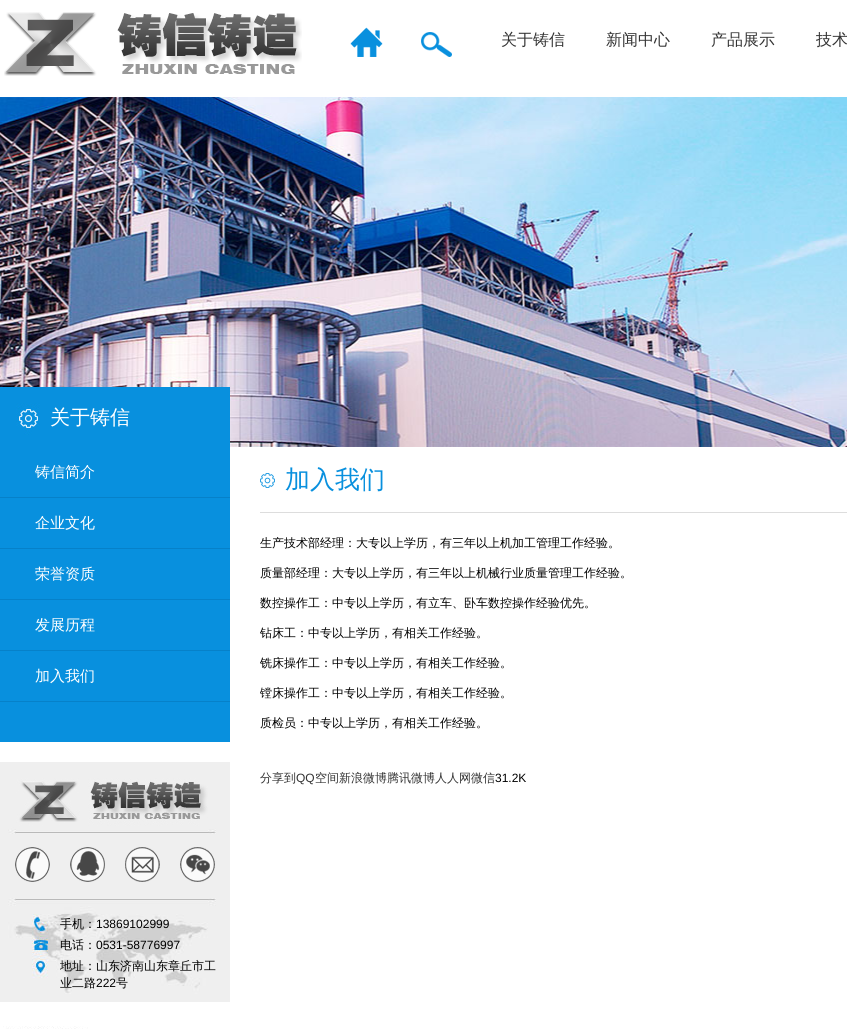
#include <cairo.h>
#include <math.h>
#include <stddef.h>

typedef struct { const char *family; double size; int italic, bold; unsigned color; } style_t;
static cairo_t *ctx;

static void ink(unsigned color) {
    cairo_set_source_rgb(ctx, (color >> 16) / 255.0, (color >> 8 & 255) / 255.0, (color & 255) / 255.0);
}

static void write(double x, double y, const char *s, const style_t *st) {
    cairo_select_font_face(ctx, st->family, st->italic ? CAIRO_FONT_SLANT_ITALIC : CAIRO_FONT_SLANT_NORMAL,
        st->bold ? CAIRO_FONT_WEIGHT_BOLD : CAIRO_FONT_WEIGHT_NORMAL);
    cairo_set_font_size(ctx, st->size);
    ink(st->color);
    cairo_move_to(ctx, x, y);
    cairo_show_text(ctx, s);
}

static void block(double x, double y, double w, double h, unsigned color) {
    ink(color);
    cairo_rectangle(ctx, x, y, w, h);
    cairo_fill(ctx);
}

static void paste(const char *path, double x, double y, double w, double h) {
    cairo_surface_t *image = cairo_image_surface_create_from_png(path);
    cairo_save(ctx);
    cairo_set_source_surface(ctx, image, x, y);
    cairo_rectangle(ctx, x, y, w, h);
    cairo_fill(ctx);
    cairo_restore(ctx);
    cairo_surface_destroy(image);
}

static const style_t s1 = {"WenQuanYi Zen Hei Medium", 16, 0, 0, 0x333333};
static const style_t s2 = {"WenQuanYi Zen Hei Medium", 20, 0, 0, 0xffffff};
static const style_t s3 = {"WenQuanYi Zen Hei Medium", 15, 0, 0, 0xffffff};
static const style_t s4 = {"WenQuanYi Zen Hei Medium", 12, 0, 0, 0x000000};
static const style_t s5 = {"Liberation Sans", 12, 0, 0, 0x000000};
static const style_t s6 = {"WenQuanYi Zen Hei Medium", 25, 0, 0, 0x0890de};
static const style_t s7 = {"WenQuanYi Zen Hei Medium", 12, 0, 0, 0x333333};
static const style_t s8 = {"Liberation Sans", 12, 0, 0, 0x333333};

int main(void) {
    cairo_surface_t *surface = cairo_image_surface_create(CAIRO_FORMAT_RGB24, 847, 1029);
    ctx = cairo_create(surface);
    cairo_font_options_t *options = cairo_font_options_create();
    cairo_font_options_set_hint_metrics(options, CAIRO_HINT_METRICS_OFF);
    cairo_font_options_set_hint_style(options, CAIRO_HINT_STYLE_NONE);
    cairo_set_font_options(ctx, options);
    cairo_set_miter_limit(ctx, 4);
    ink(0xffffff);
    cairo_paint(ctx);
    paste("pic1.png", 4, 12, 298, 64);
    paste("pic2.png", 350, 27, 33, 30);
    paste("pic3.png", 421, 32, 31, 25);
    write(501, 45, "关于铸信", &s1);
    write(606, 45, "新闻中心", &s1);
    write(711, 45, "产品展示", &s1);
    write(816, 45, "技术", &s1);
    paste("pic4.png", 0, 97, 847, 350);
    paste("pic5.png", 0, 387, 230, 60);
    write(50, 424, "关于铸信", &s2);
    block(0, 447, 230, 295, 0x0890de);
    block(0, 497, 230, 1, 0x0681c9);
    write(35, 477, "铸信简介", &s3);
    block(0, 548, 230, 1, 0x0681c9);
    write(35, 528, "企业文化", &s3);
    block(0, 599, 230, 1, 0x0681c9);
    write(35, 579, "荣誉资质", &s3);
    block(0, 650, 230, 1, 0x0681c9);
    write(35, 630, "发展历程", &s3);
    block(0, 701, 230, 1, 0x0681c9);
    write(35, 681, "加入我们", &s3);
    paste("pic6.png", 0, 762, 230, 240);
    paste("pic7.png", 15, 847, 35, 35);
    paste("pic8.png", 70, 847, 35, 35);
    paste("pic9.png", 125, 847, 35, 35);
    paste("pic10.png", 180, 847, 35, 35);
    write(60, 928, "手机：", &s4);
    write(96, 928, "13869102999", &s5);
    write(60, 949, "电话：", &s4);
    write(96, 949, "0531-58776997", &s5);
    write(60, 970, "地址：山东济南山东章丘市工", &s4);
    write(60, 987, "业二路", &s4);
    write(96, 987, "222", &s5);
    write(116, 987, "号", &s4);
    paste("pic11.png", 3, 1026, 85, 3);
    block(260, 512, 587, 1, 0xdddddd);
    paste("pic12.png", 260, 473, 15, 15);
    write(285, 488, "加入我们", &s6);
    write(260, 547, "生产技术部经理：大专以上学历，有三年以上机加工管理工作经验。", &s4);
    write(260, 577, "质量部经理：大专以上学历，有三年以上机械行业质量管理工作经验。", &s4);
    write(260, 607, "数控操作工：中专以上学历，有立车、卧车数控操作经验优先。", &s4);
    write(260, 637, "钻床工：中专以上学历，有相关工作经验。", &s4);
    write(260, 667, "铣床操作工：中专以上学历，有相关工作经验。", &s4);
    write(260, 697, "镗床操作工：中专以上学历，有相关工作经验。", &s4);
    write(260, 727, "质检员：中专以上学历，有相关工作经验。", &s4);
    write(260, 782, "分享到", &s7);
    write(296, 782, "QQ", &s8);
    write(315, 782, "空间新浪微博腾讯微博人人网微信", &s7);
    write(495, 782, "31.2K", &s5);
    cairo_surface_write_to_png(surface, "screenshot.png");
    cairo_font_options_destroy(options);
    cairo_destroy(ctx);
    cairo_surface_destroy(surface);
    return 0;
}
